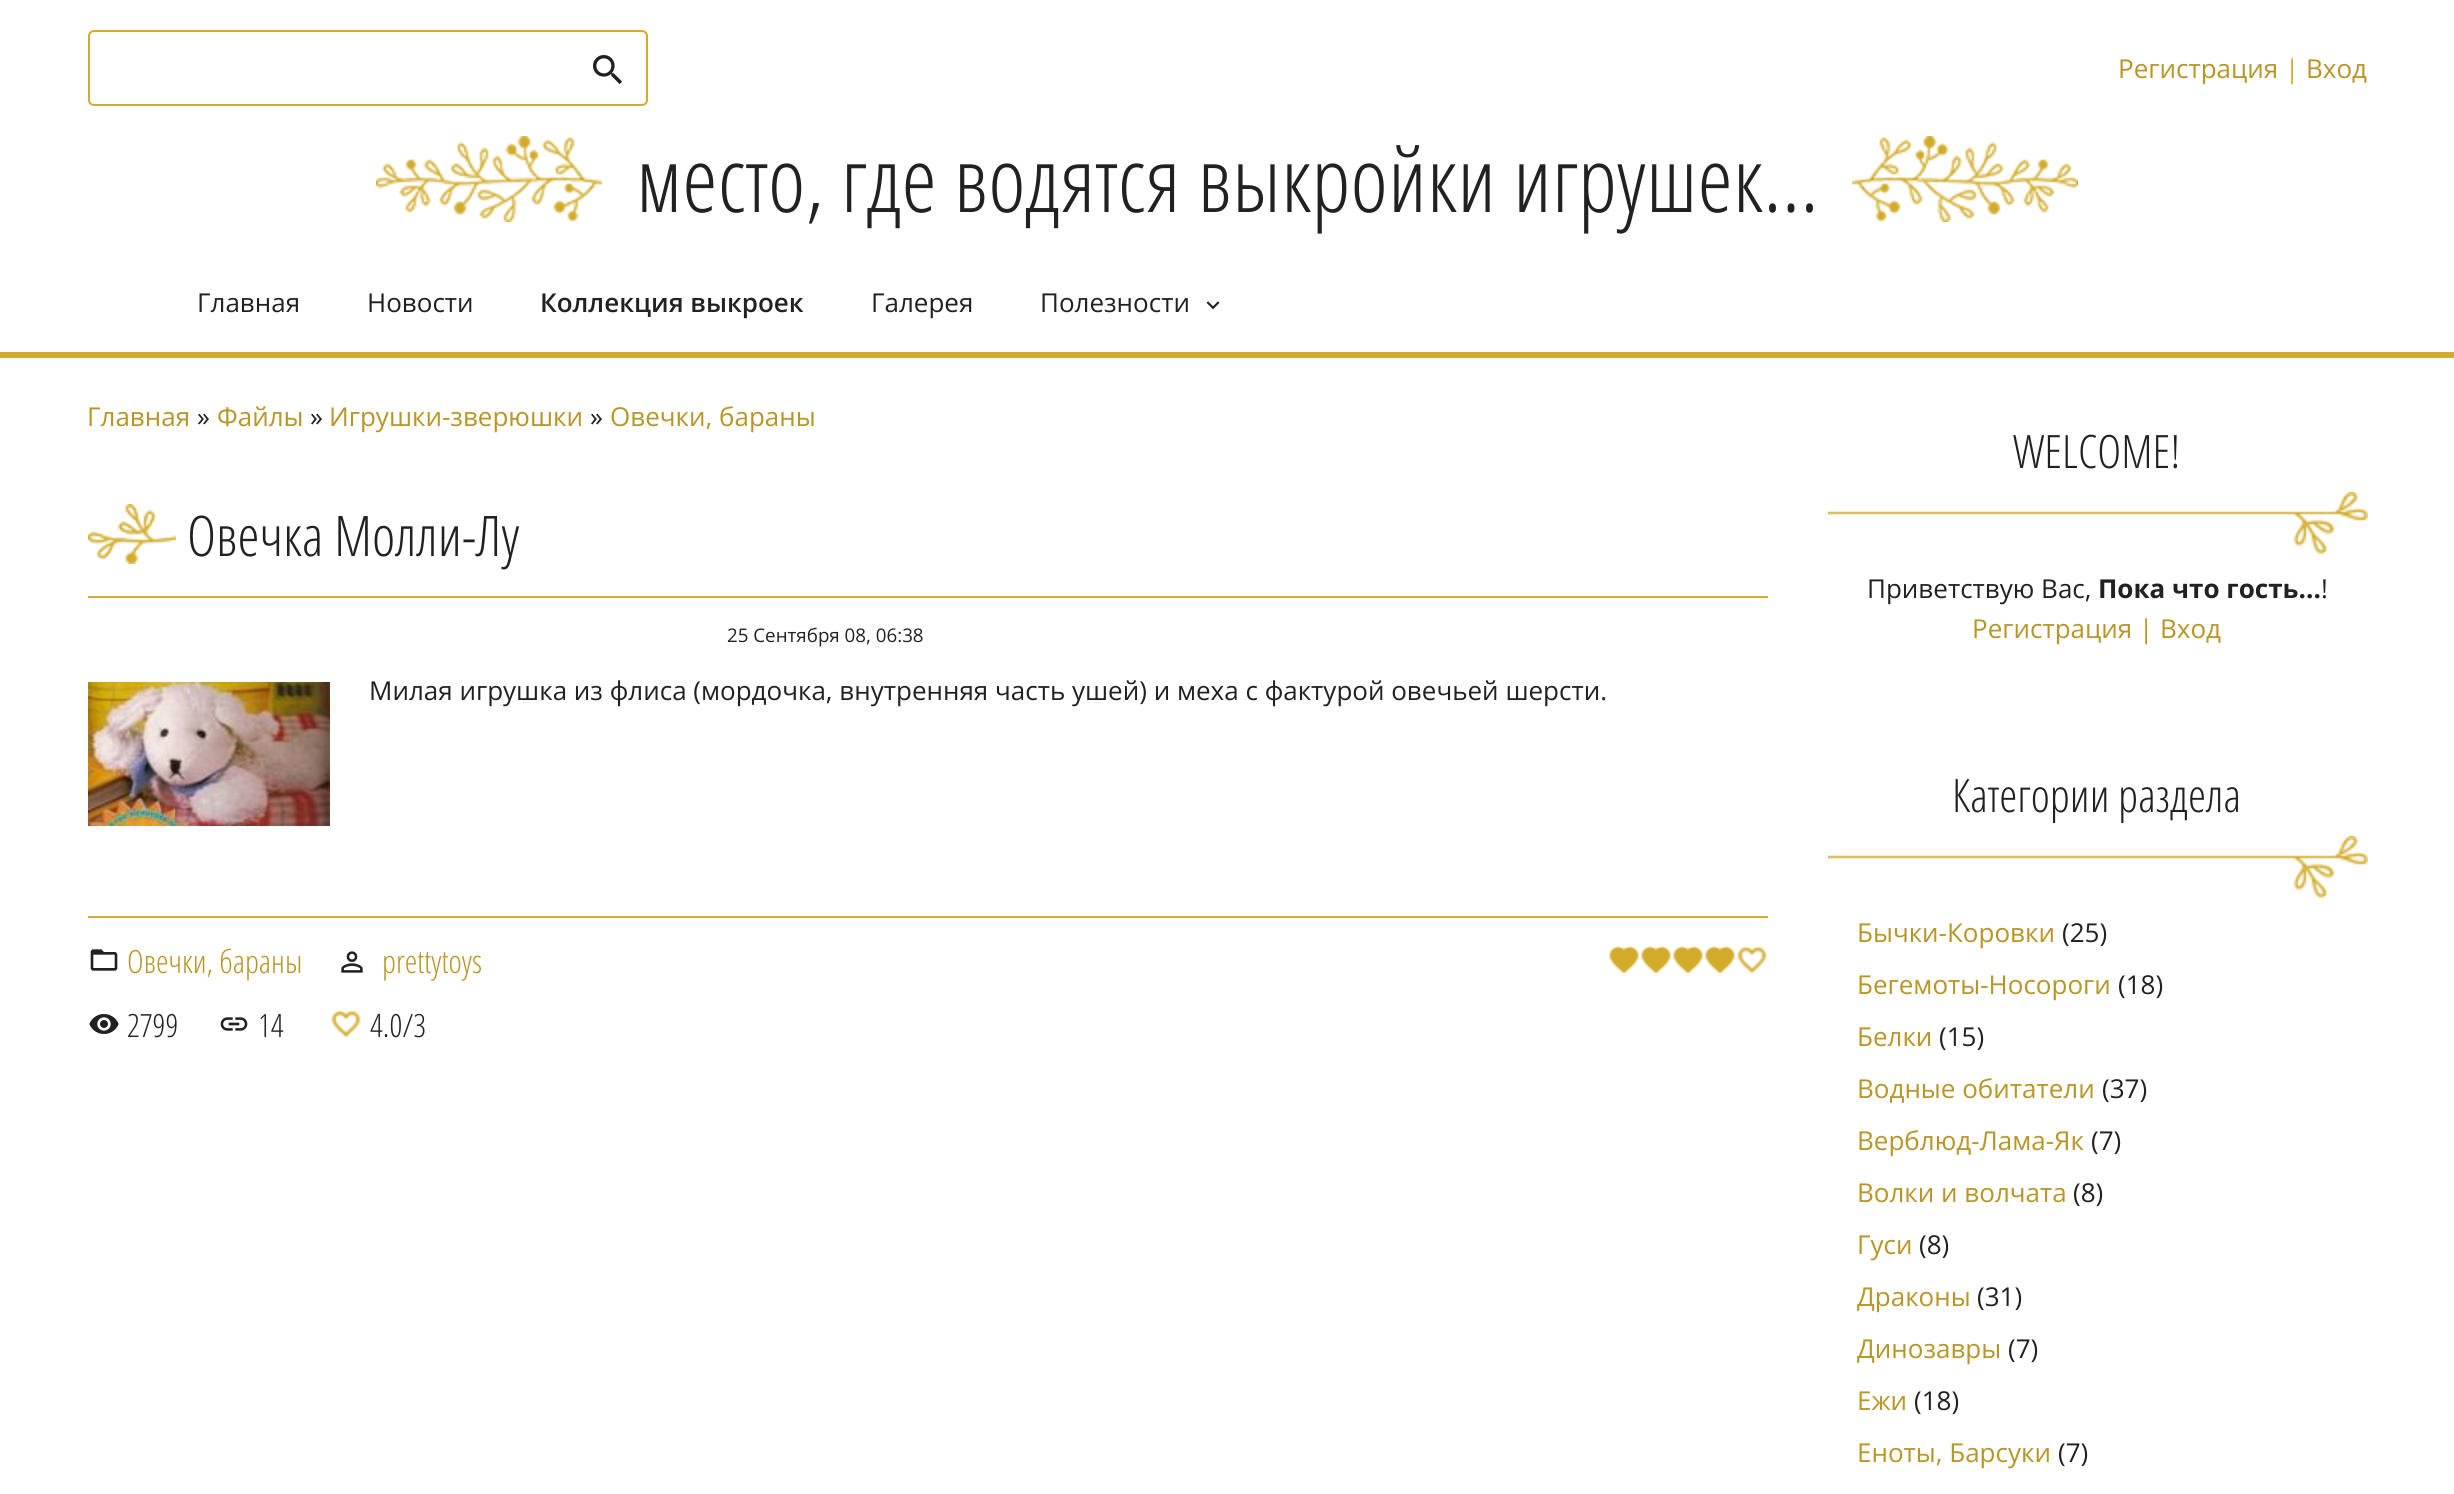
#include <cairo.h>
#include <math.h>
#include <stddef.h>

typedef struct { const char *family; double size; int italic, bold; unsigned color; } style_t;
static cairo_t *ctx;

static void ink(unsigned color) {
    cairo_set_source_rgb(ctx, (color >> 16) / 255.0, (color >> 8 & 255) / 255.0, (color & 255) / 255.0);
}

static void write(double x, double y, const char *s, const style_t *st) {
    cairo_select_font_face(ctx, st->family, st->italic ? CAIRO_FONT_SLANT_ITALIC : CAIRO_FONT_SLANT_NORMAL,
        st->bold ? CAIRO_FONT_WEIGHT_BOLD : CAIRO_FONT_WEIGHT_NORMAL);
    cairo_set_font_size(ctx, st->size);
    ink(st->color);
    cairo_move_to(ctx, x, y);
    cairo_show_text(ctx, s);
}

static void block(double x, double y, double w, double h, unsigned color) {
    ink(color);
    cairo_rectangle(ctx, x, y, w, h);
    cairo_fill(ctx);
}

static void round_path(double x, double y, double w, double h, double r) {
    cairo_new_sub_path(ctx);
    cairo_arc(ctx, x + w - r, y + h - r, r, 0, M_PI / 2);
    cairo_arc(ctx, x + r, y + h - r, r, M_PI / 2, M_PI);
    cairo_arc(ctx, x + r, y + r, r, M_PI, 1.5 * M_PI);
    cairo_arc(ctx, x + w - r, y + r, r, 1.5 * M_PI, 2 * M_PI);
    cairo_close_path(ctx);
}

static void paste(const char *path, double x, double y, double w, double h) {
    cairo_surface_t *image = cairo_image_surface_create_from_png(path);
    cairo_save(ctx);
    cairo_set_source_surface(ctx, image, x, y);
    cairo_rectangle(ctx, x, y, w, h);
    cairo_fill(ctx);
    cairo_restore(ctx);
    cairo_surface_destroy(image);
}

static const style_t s1 = {"Open Sans", 26, 0, 0, 0xb89525};
static const style_t s2 = {"Open Sans", 26, 0, 0, 0xd2ab2a};
static const style_t s3 = {"Open Sans Condensed Light", 90, 0, 0, 0x212121};
static const style_t s4 = {"Open Sans", 26, 0, 0, 0x212121};
static const style_t s5 = {"Open Sans SemiBold", 26, 0, 0, 0x212121};
static const style_t s6 = {"Open Sans Condensed Light", 56, 0, 0, 0x212121};
static const style_t s7 = {"Open Sans", 18.75, 0, 0, 0x212121};
static const style_t s8 = {"Open Sans Condensed Light", 32, 0, 0, 0xb89525};
static const style_t s9 = {"Open Sans Condensed Light", 32, 0, 0, 0x212121};
static const style_t s10 = {"Open Sans Condensed Light", 46, 0, 0, 0x212121};
static const style_t s11 = {"Open Sans", 26, 0, 1, 0x212121};

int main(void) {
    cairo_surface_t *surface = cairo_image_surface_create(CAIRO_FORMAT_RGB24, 2454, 1494);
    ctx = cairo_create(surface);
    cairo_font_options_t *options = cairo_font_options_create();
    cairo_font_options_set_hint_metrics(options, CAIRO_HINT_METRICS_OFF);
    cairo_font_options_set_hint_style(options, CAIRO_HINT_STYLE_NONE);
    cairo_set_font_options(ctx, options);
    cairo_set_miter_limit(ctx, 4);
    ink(0xffffff);
    cairo_paint(ctx);
    block(0, 352, 2454, 6, 0xd2ab2a);
    round_path(89, 31, 558, 74, 5);
    cairo_stroke(ctx);
    paste("pic1.png", 593, 55, 29, 29);
    write(2118, 78, "Регистрация", &s1);
    write(2285, 78, "|", &s2);
    write(2306, 78, "Вход", &s1);
    paste("pic2.png", 376, 136, 226, 86);
    write(636, 212, "место, где водятся выкройки игрушек...", &s3);
    paste("pic3.png", 1852, 136, 226, 86);
    write(197, 312, "Главная", &s4);
    write(367, 312, "Новости", &s4);
    write(540, 312, "Коллекция выкроек", &s5);
    write(871, 312, "Галерея", &s4);
    write(1040, 312, "Полезности", &s4);
    paste("pic4.png", 1206, 301, 14, 9);
    write(87, 426, "Главная", &s1);
    write(197, 426, "»", &s4);
    write(217, 426, "Файлы", &s1);
    write(310, 426, "»", &s4);
    write(329, 426, "Игрушки-зверюшки", &s1);
    write(590, 426, "»", &s4);
    write(610, 426, "Овечки, бараны", &s1);
    block(88, 596, 1680, 2, 0xd2ab2a);
    paste("pic5.png", 88, 504, 88, 60);
    write(187, 556, "Овечка Молли-Лу", &s6);
    write(727, 642, "25 Сентября 08, 06:38", &s7);
    block(88, 916, 1680, 2, 0xd2ab2a);
    paste("pic6.png", 88, 682, 242, 144);
    write(369, 700, "Милая игрушка из флиса (мордочка, внутренняя часть ушей) и меха с фактурой овечьей шерсти.", &s4);
    paste("pic7.png", 90, 949, 28, 22);
    write(127, 973, "Овечки, бараны", &s8);
    paste("pic8.png", 341, 951, 22, 22);
    write(382, 973, "prettytoys", &s8);
    paste("pic9.png", 1609, 945, 158, 29);
    paste("pic10.png", 1609, 945, 126, 29);
    paste("pic11.png", 89, 1014, 30, 20);
    write(127, 1037, "2799", &s9);
    paste("pic12.png", 220, 1017, 28, 14);
    write(258, 1037, "14", &s9);
    paste("pic13.png", 331, 1009, 30, 29);
    write(370, 1037, "4.0/3", &s9);
    write(2013, 468, "WELCOME!", &s10);
    paste("pic14.png", 1828, 492, 540, 62);
    write(1867, 598, "Приветствую Вас,", &s4);
    write(2098, 598, "Пока что гость...", &s11);
    write(2321, 598, "!", &s4);
    write(1972, 638, "Регистрация | Вход", &s1);
    write(1952, 812, "Категории раздела", &s10);
    paste("pic14.png", 1828, 836, 540, 62);
    write(1857, 942, "Бычки-Коровки", &s1);
    write(2062, 942, "(25)", &s4);
    write(1857, 994, "Бегемоты-Носороги", &s1);
    write(2118, 994, "(18)", &s4);
    write(1857, 1046, "Белки", &s1);
    write(1939, 1046, "(15)", &s4);
    write(1857, 1098, "Водные обитатели", &s1);
    write(2102, 1098, "(37)", &s4);
    write(1857, 1150, "Верблюд-Лама-Як", &s1);
    write(2091, 1150, "(7)", &s4);
    write(1857, 1202, "Волки и волчата", &s1);
    write(2073, 1202, "(8)", &s4);
    write(1857, 1254, "Гуси", &s1);
    write(1919, 1254, "(8)", &s4);
    write(1857, 1306, "Драконы", &s1);
    write(1977, 1306, "(31)", &s4);
    write(1857, 1358, "Динозавры", &s1);
    write(2008, 1358, "(7)", &s4);
    write(1857, 1410, "Ежи", &s1);
    write(1914, 1410, "(18)", &s4);
    write(1857, 1462, "Еноты, Барсуки", &s1);
    write(2058, 1462, "(7)", &s4);
    cairo_surface_write_to_png(surface, "screenshot.png");
    cairo_font_options_destroy(options);
    cairo_destroy(ctx);
    cairo_surface_destroy(surface);
    return 0;
}
